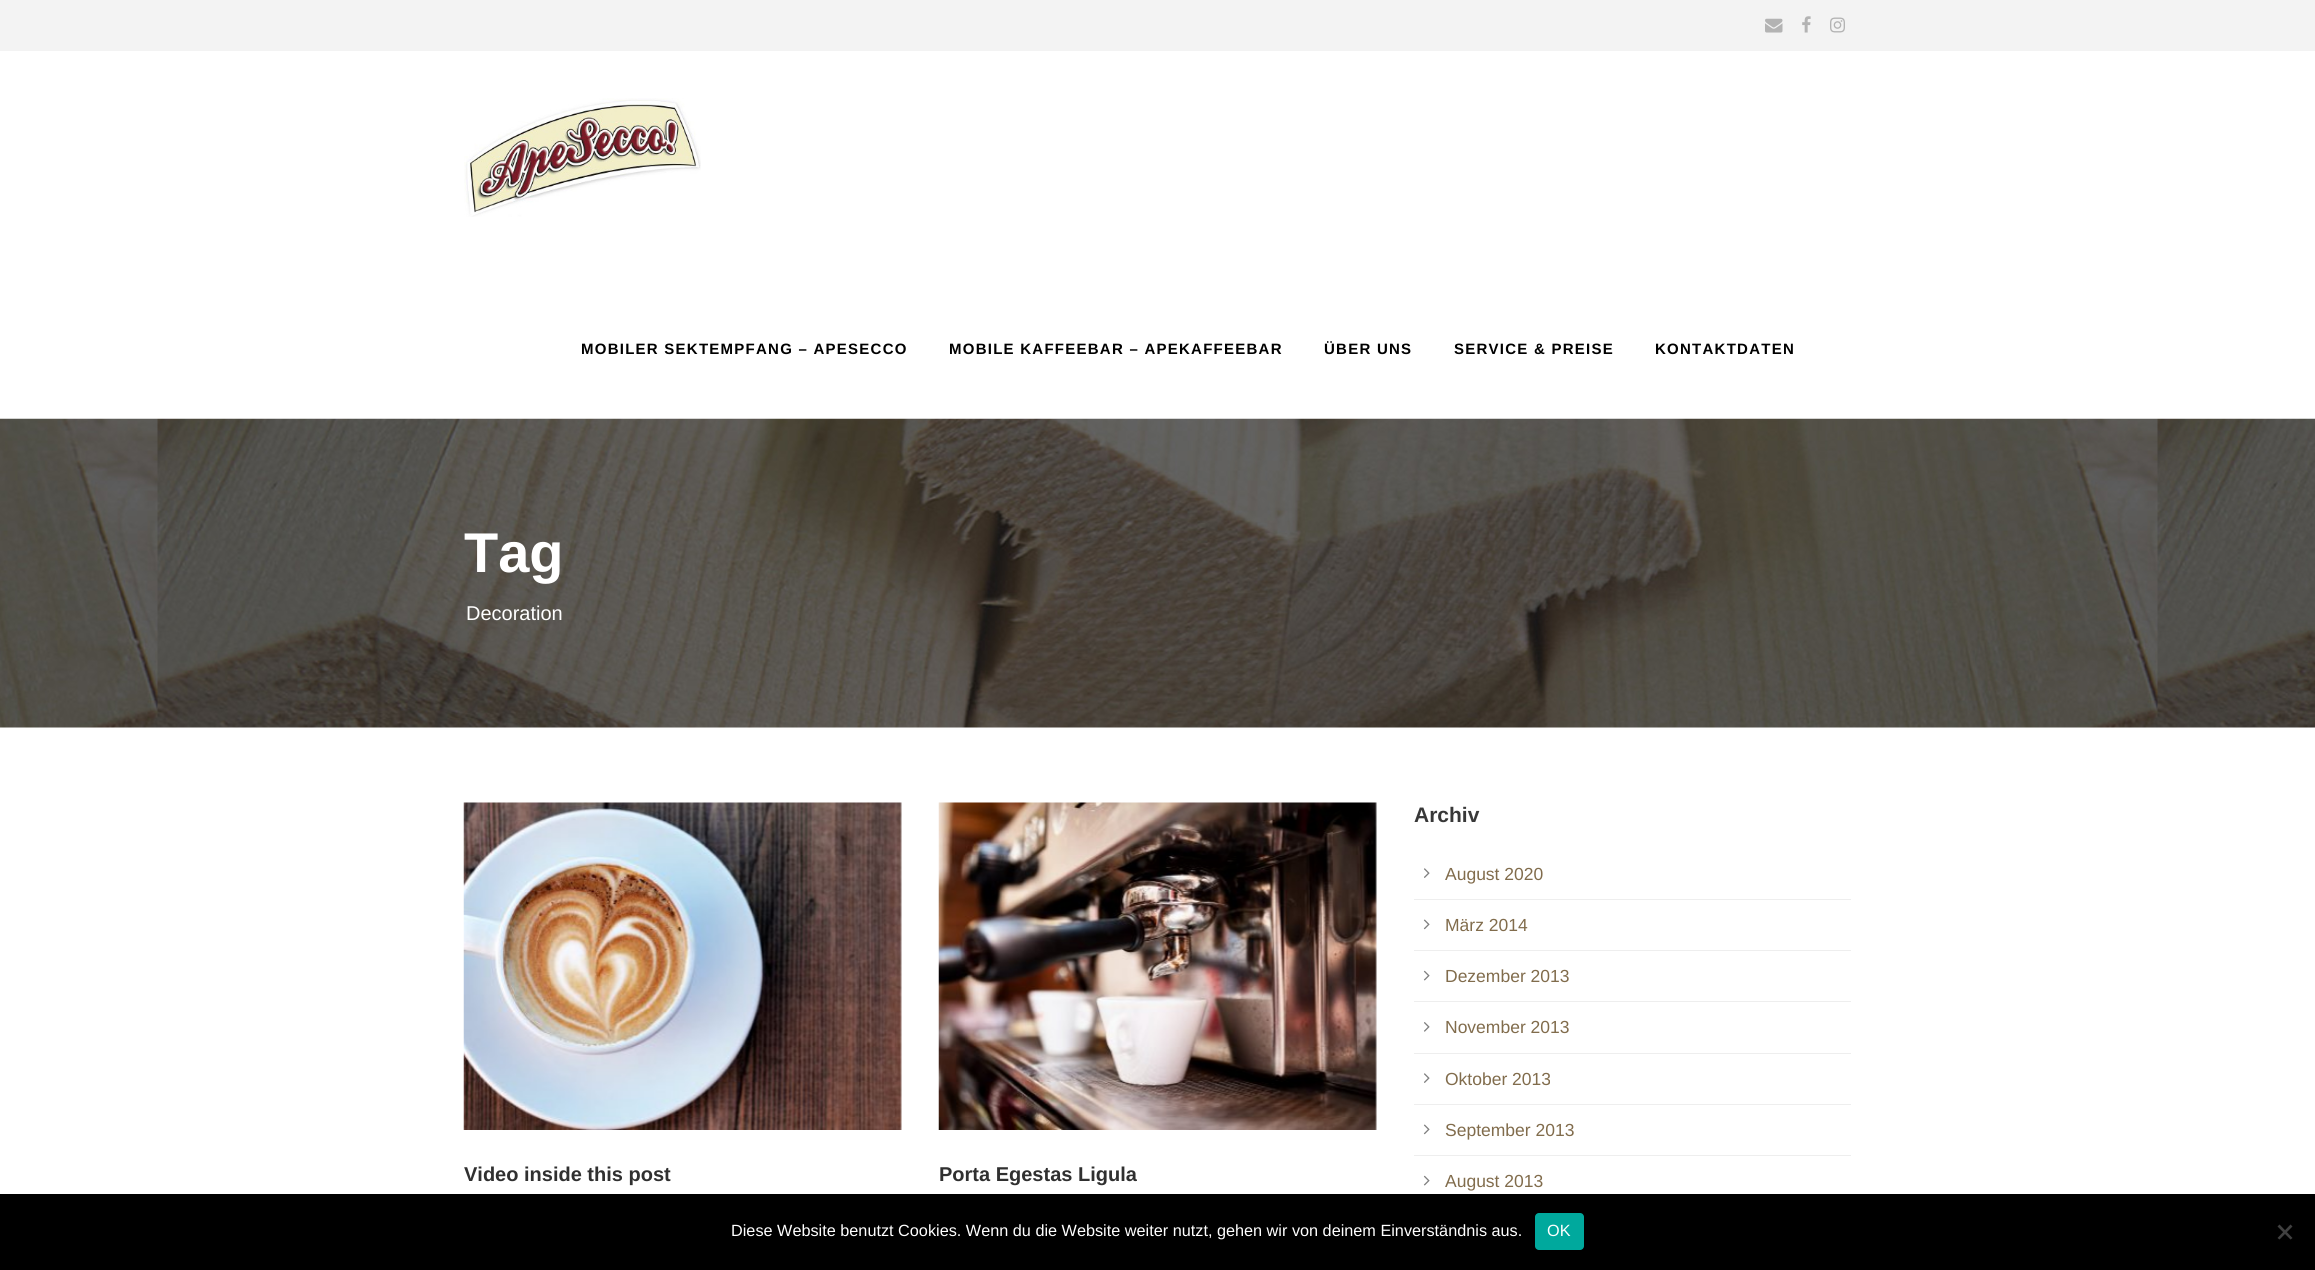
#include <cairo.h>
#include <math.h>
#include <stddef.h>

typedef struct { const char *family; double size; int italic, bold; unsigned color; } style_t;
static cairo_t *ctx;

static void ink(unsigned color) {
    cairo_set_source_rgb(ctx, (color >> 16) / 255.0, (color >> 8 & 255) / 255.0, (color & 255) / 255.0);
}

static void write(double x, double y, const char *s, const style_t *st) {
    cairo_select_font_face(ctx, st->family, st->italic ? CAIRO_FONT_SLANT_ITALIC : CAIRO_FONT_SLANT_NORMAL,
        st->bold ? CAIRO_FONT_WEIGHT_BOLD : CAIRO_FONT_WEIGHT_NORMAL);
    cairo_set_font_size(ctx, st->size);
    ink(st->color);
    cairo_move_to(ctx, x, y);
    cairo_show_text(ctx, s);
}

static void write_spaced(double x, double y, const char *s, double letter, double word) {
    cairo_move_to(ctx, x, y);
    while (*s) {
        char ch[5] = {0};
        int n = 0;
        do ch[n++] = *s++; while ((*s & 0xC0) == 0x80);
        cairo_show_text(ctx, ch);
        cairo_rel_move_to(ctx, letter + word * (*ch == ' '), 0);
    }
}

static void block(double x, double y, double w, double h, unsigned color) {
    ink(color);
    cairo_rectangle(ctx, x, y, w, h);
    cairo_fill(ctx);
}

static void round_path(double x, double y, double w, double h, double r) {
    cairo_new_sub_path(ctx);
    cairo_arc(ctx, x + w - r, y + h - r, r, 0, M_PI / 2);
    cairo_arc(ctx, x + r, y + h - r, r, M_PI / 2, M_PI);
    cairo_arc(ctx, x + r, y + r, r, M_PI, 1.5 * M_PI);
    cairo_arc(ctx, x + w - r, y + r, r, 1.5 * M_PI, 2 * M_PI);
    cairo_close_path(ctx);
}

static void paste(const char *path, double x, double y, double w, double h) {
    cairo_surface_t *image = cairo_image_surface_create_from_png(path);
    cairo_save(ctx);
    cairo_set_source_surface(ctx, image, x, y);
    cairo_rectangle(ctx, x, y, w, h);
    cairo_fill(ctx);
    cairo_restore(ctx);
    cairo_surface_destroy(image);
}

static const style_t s1 = {"Liberation Sans", 56, 0, 1, 0xffffff};
static const style_t s2 = {"Liberation Sans", 20, 0, 0, 0xffffff};
static const style_t s3 = {"Liberation Sans", 20, 0, 1, 0x303030};
static const style_t s4 = {"Liberation Sans", 21, 0, 1, 0x383838};
static const style_t s5 = {"Liberation Sans", 17.5, 0, 0, 0x816c4c};
static const style_t s6 = {"Liberation Sans", 16.25, 0, 0, 0xffffff};

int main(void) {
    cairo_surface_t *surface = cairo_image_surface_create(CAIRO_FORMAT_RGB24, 2315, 1270);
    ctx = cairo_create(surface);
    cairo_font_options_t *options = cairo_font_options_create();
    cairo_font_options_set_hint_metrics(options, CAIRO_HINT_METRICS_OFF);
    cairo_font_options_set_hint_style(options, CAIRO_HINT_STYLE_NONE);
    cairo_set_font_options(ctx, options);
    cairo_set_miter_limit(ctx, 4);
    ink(0xffffff);
    cairo_paint(ctx);
    block(0, 0, 2315, 51, 0xf3f3f3);
    paste("pic1.png", 1765, 18, 18, 15);
    paste("pic2.png", 1802, 16, 9, 17);
    paste("pic3.png", 1830, 17, 15, 16);
    paste("pic4.png", 464, 98, 237, 119);
    cairo_select_font_face(ctx, "Liberation Sans", CAIRO_FONT_SLANT_NORMAL, CAIRO_FONT_WEIGHT_BOLD);
    cairo_set_font_size(ctx, 15);
    ink(0x000000);
    write_spaced(581, 354, "MOBILER SEKTEMPFANG – APESECCO", 1.25, 0);
    write_spaced(949, 354, "MOBILE KAFFEEBAR – APEKAFFEEBAR", 1.25, 0);
    write_spaced(1324, 354, "ÜBER UNS", 1.25, 0);
    write_spaced(1454, 354, "SERVICE & PREISE", 1.25, 0);
    write_spaced(1655, 354, "KONTAKTDATEN", 1.25, 0);
    paste("pic5.png", 0, 418, 2315, 310);
    write(464, 572, "Tag", &s1);
    write(466, 620, "Decoration", &s2);
    paste("pic6.png", 463, 802, 439, 328);
    write(464, 1181, "Video inside this post", &s3);
    paste("pic7.png", 938, 802, 439, 328);
    write(939, 1181, "Porta Egestas Ligula", &s3);
    write(1414, 822, "Archiv", &s4);
    block(1414, 899, 437, 1, 0xeeeeee);
    paste("pic8.png", 1424, 868, 6, 10);
    write(1445, 880, "August 2020", &s5);
    block(1414, 950, 437, 1, 0xeeeeee);
    paste("pic9.png", 1423, 919, 7, 11);
    write(1445, 931, "März 2014", &s5);
    block(1414, 1001, 437, 1, 0xeeeeee);
    paste("pic10.png", 1423, 970, 7, 11);
    write(1445, 982, "Dezember 2013", &s5);
    block(1414, 1053, 437, 1, 0xeeeeee);
    paste("pic11.png", 1424, 1022, 6, 10);
    write(1445, 1033, "November 2013", &s5);
    block(1414, 1104, 437, 1, 0xeeeeee);
    paste("pic8.png", 1424, 1073, 6, 10);
    write(1445, 1085, "Oktober 2013", &s5);
    block(1414, 1155, 437, 1, 0xeeeeee);
    paste("pic9.png", 1423, 1124, 7, 11);
    write(1445, 1136, "September 2013", &s5);
    paste("pic10.png", 1423, 1175, 7, 11);
    write(1445, 1187, "August 2013", &s5);
    block(0, 1194, 2315, 76, 0x000000);
    write(731, 1236, "Diese Website benutzt Cookies. Wenn du die Website weiter nutzt, gehen wir von deinem Einverständnis aus.", &s6);
    ink(0x00a99d);
    round_path(1535, 1213, 49, 37, 4);
    cairo_fill(ctx);
    write(1547, 1236, "OK", &s6);
    ink(0x404040);
    cairo_new_path(ctx);
    cairo_move_to(ctx, 2290.5, 1224.5);
    cairo_line_to(ctx, 2292.5, 1226.5);
    cairo_line_to(ctx, 2279.5, 1239.5);
    cairo_line_to(ctx, 2277.5, 1238);
    cairo_close_path(ctx);
    cairo_fill(ctx);
    cairo_new_path(ctx);
    cairo_move_to(ctx, 2277.5, 1226.5);
    cairo_line_to(ctx, 2279.5, 1224.5);
    cairo_line_to(ctx, 2292.5, 1238);
    cairo_line_to(ctx, 2290.5, 1239.5);
    cairo_close_path(ctx);
    cairo_fill(ctx);
    cairo_surface_write_to_png(surface, "screenshot.png");
    cairo_font_options_destroy(options);
    cairo_destroy(ctx);
    cairo_surface_destroy(surface);
    return 0;
}
